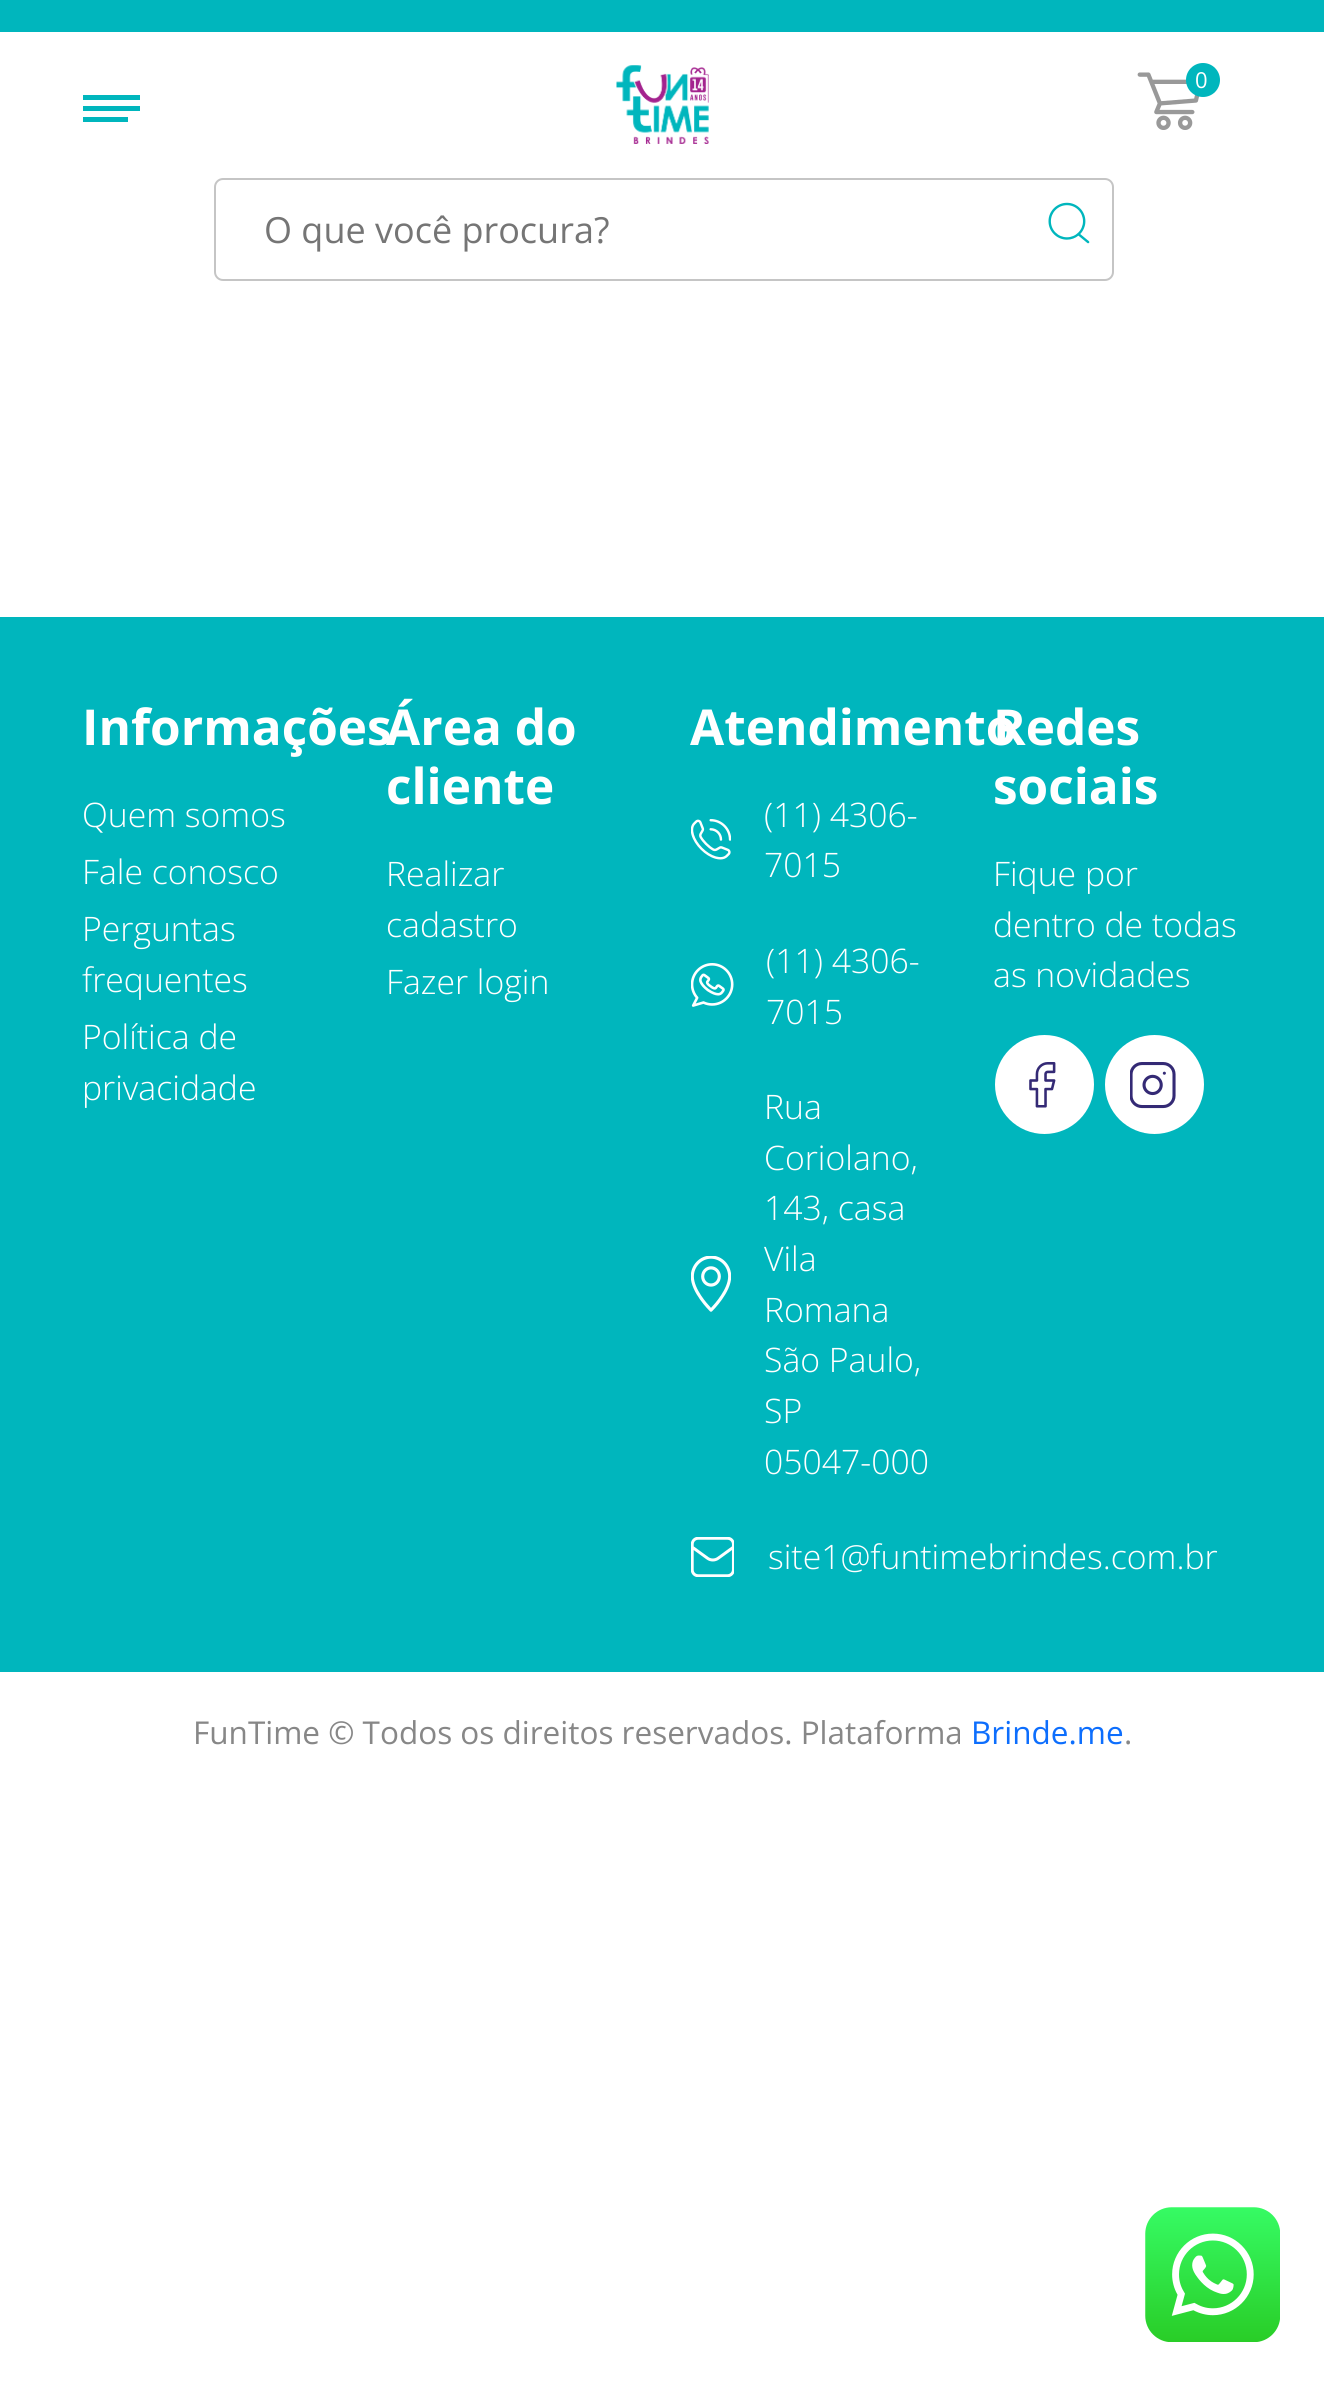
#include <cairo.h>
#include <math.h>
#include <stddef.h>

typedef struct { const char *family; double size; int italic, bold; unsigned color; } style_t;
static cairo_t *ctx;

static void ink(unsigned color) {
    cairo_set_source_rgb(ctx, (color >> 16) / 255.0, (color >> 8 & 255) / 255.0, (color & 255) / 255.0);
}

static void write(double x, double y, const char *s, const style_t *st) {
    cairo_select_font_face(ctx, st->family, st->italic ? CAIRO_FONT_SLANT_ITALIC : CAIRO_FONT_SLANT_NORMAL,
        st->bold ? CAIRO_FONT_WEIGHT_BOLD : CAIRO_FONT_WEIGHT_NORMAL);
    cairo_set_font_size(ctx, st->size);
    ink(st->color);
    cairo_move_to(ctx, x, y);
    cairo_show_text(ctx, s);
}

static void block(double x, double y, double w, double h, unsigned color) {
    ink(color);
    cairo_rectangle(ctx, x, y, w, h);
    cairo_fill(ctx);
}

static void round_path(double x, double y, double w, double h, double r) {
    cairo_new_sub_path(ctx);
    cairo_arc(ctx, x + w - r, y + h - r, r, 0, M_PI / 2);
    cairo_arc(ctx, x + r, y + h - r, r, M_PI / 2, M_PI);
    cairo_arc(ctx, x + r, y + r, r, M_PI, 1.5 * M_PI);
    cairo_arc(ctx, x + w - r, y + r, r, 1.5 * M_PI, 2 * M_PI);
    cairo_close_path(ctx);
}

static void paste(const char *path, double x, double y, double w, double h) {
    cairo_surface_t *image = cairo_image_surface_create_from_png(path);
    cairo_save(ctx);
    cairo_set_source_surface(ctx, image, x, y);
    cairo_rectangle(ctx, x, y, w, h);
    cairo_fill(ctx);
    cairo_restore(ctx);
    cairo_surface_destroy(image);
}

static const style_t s1 = {"Open Sans", 22, 0, 0, 0xffffff};
static const style_t s2 = {"Open Sans", 36, 0, 0, 0x757575};
static const style_t s3 = {"Open Sans", 49.5, 0, 1, 0xffffff};
static const style_t s4 = {"Open Sans Light", 33.75, 0, 0, 0xffffff};
static const style_t s5 = {"Open Sans", 31.5, 0, 0, 0x878787};
static const style_t s6 = {"Open Sans", 31.5, 0, 0, 0x0d6efd};

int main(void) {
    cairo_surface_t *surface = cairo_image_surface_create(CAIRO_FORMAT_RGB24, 1324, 2386);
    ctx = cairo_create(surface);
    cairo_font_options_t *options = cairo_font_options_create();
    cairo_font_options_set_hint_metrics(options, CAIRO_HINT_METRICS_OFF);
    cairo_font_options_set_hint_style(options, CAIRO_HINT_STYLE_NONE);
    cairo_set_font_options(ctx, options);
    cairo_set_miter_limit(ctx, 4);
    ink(0xffffff);
    cairo_paint(ctx);
    block(0, 0, 1324, 32, 0x00b6bd);
    paste("pic1.png", 616, 65, 93, 79);
    paste("pic2.png", 1137, 72, 63, 58);
    cairo_arc(ctx, 1203, 80, 17, 0, 2 * M_PI);
    cairo_fill(ctx);
    write(1195, 88, "0", &s1);
    block(83, 95, 57, 5, 0x00b6bd);
    block(83, 106, 57, 5, 0x00b6bd);
    block(83, 117, 45, 5, 0x00b6bd);
    round_path(215, 179, 898, 101, 8);
    ink(0xc5c5c5);
    cairo_stroke(ctx);
    write(264, 243, "O que você procura?", &s2);
    paste("pic3.png", 1048, 202, 42, 42);
    block(0, 617, 1324, 1055, 0x00b6bd);
    write(82, 745, "Informações", &s3);
    write(82, 827, "Quem somos", &s4);
    write(82, 884, "Fale conosco", &s4);
    write(82, 941, "Perguntas", &s4);
    write(82, 992, "frequentes", &s4);
    write(82, 1049, "Política de", &s4);
    write(82, 1100, "privacidade", &s4);
    write(386, 745, "Área do", &s3);
    write(386, 804, "cliente", &s3);
    write(386, 886, "Realizar", &s4);
    write(386, 937, "cadastro", &s4);
    write(386, 994, "Fazer login", &s4);
    write(690, 745, "Atendimento", &s3);
    paste("pic4.png", 691, 819, 40, 41);
    write(764, 827, "(11) 4306-", &s4);
    write(764, 877, "7015", &s4);
    paste("pic5.png", 691, 963, 43, 44);
    write(766, 973, "(11) 4306-", &s4);
    write(766, 1024, "7015", &s4);
    paste("pic6.png", 691, 1256, 40, 56);
    write(764, 1119, "Rua", &s4);
    write(764, 1170, "Coriolano,", &s4);
    write(764, 1220, "143, casa", &s4);
    write(764, 1271, "Vila", &s4);
    write(764, 1322, "Romana", &s4);
    write(764, 1372, "São Paulo,", &s4);
    write(764, 1423, "SP", &s4);
    write(764, 1474, "05047-000", &s4);
    paste("pic7.png", 691, 1537, 43, 40);
    write(768, 1569, "site1@funtimebrindes.com.br", &s4);
    write(993, 745, "Redes", &s3);
    write(993, 804, "sociais", &s3);
    write(993, 886, "Fique por", &s4);
    write(993, 937, "dentro de todas", &s4);
    write(993, 987, "as novidades", &s4);
    cairo_new_path(ctx);
    cairo_arc(ctx, 1044.5, 1084.5, 49.5, 0, 2 * M_PI);
    cairo_fill(ctx);
    paste("pic8.png", 1029, 1062, 27, 46);
    cairo_arc(ctx, 1154.5, 1084.5, 49.5, 0, 2 * M_PI);
    cairo_fill(ctx);
    paste("pic9.png", 1130, 1062, 46, 47);
    write(193, 1744, "FunTime © Todos os direitos reservados. Plataforma", &s5);
    write(971, 1744, "Brinde.me", &s6);
    write(1124, 1744, ".", &s5);
    paste("pic10.png", 1145, 2207, 135, 135);
    cairo_surface_write_to_png(surface, "screenshot.png");
    cairo_font_options_destroy(options);
    cairo_destroy(ctx);
    cairo_surface_destroy(surface);
    return 0;
}
